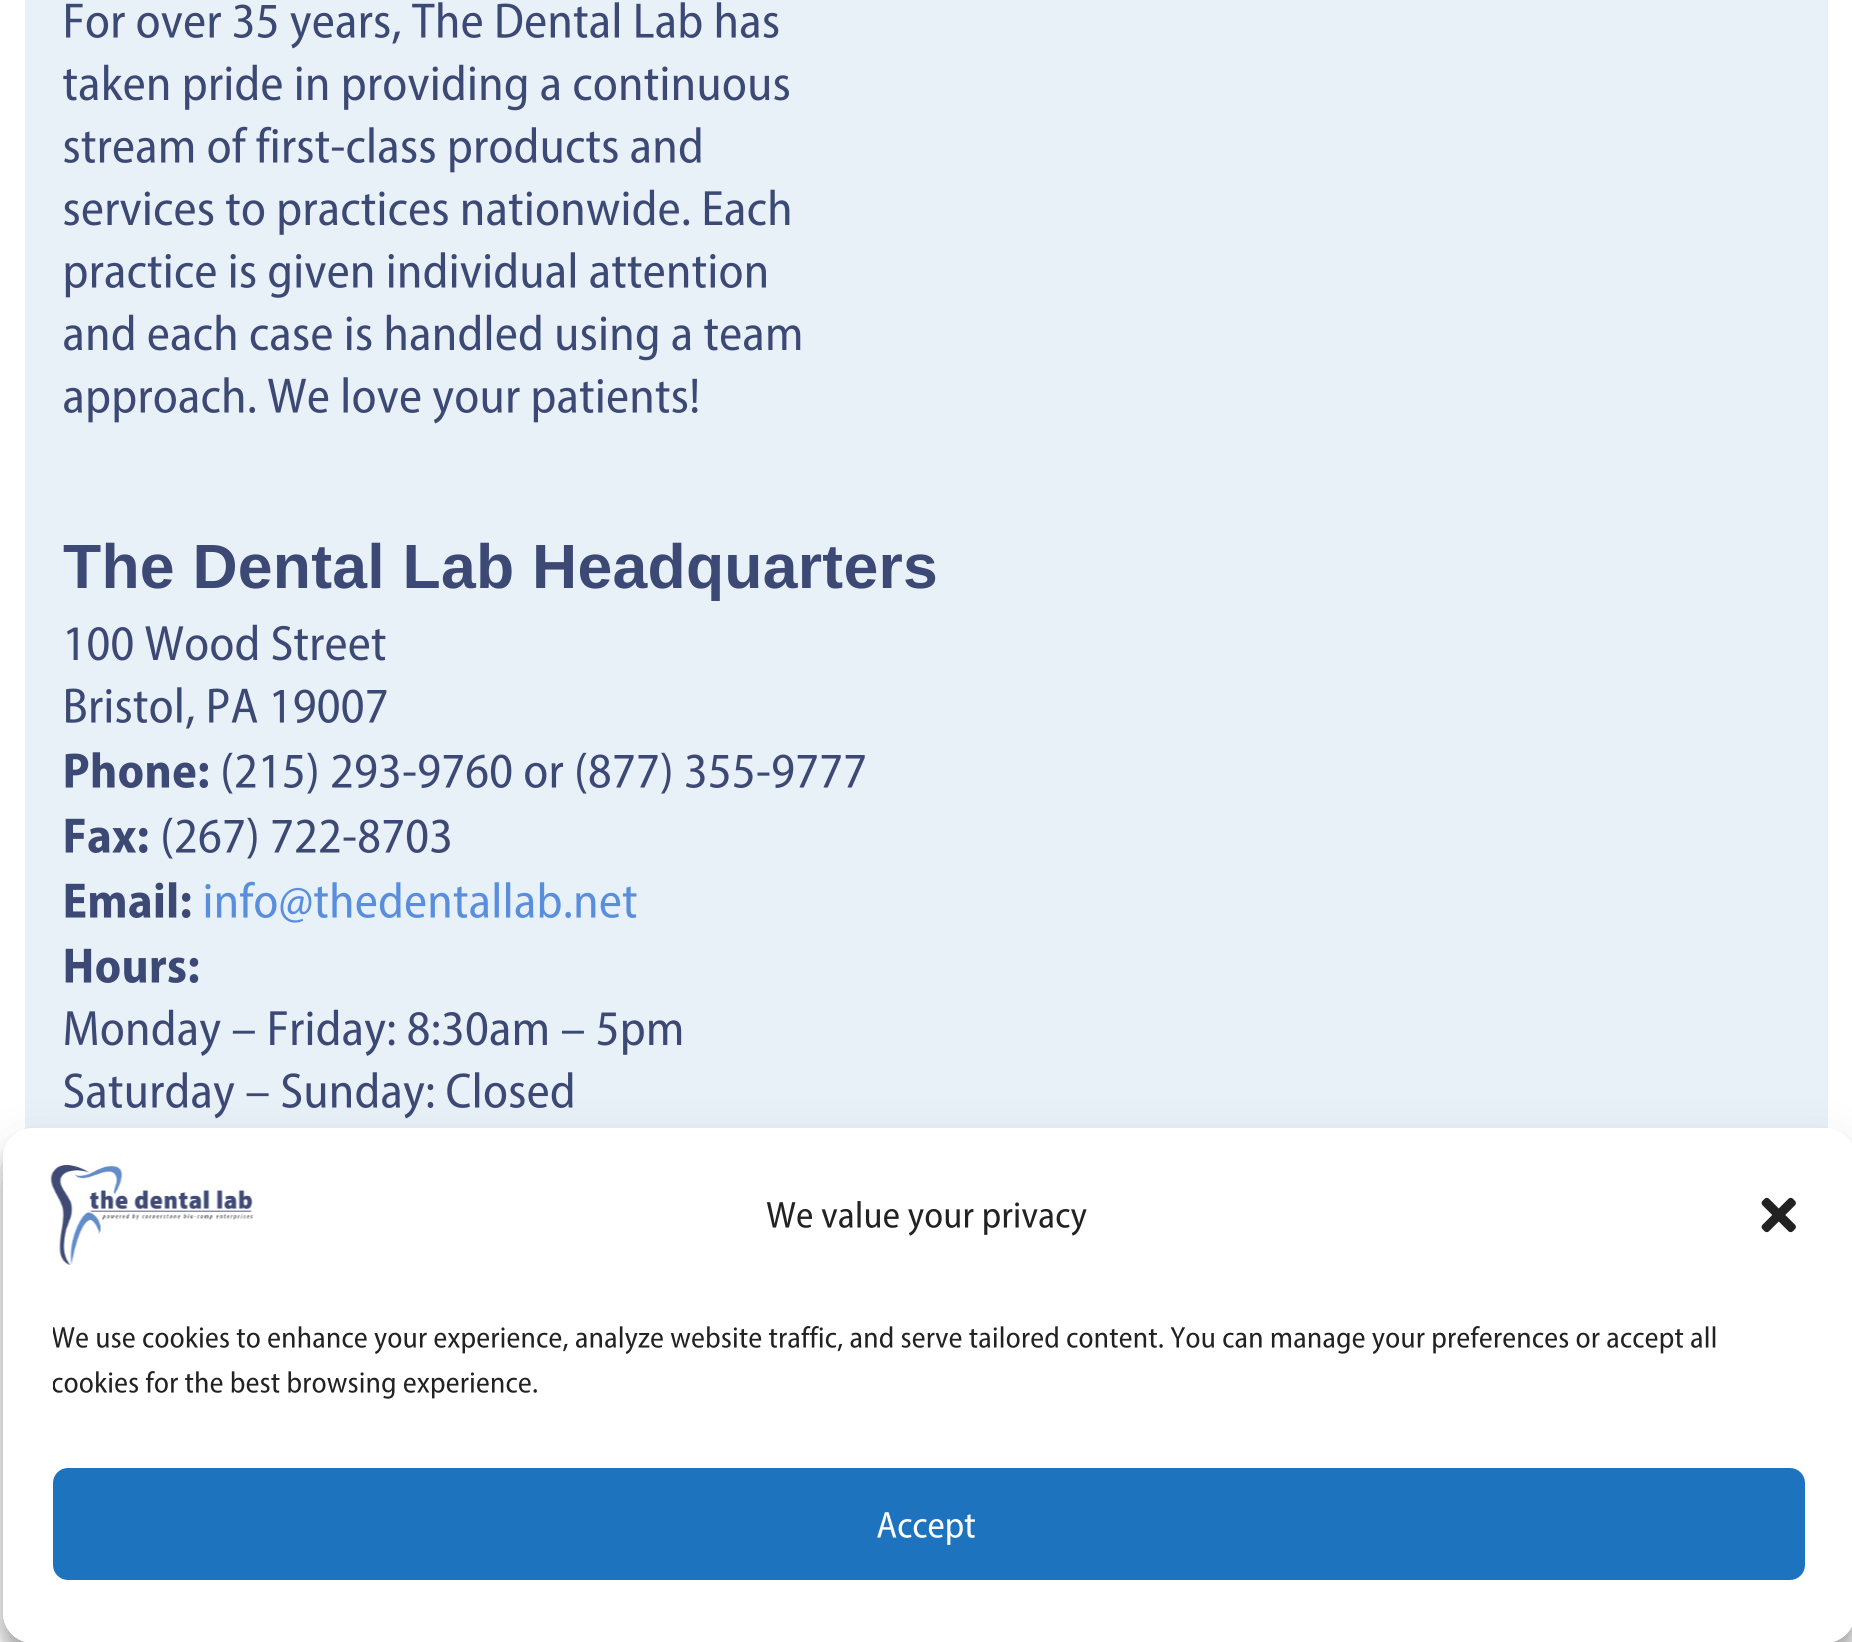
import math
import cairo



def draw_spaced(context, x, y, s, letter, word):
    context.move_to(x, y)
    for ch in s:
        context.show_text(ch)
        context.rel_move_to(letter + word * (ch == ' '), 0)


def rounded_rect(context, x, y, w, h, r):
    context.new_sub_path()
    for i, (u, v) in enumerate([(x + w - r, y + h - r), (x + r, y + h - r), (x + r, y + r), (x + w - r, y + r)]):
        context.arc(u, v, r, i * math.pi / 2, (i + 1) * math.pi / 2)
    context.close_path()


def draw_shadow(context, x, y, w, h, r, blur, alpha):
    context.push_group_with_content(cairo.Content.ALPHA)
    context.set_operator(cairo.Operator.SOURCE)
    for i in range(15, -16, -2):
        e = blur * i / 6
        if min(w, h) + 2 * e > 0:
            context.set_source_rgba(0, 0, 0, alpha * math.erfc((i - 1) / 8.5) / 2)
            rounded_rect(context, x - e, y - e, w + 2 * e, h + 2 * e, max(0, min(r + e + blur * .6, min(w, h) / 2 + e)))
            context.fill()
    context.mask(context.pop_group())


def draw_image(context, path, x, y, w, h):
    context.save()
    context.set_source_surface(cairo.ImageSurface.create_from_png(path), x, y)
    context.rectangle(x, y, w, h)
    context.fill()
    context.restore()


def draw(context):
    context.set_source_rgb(1, 1, 1)
    context.paint()
    context.set_source_rgb(232 / 255, 240 / 255, 248 / 255)
    context.rectangle(25, 0, 1803, 1642)
    context.fill()
    draw_image(context, "images/1.png", 66, 2, 713, 47)
    draw_image(context, "images/2.png", 63, 64, 726, 47)
    draw_image(context, "images/3.png", 64, 126, 637, 47)
    draw_image(context, "images/4.png", 64, 189, 726, 46)
    draw_image(context, "images/5.png", 65, 252, 701, 46)
    draw_image(context, "images/6.png", 64, 314, 737, 47)
    draw_image(context, "images/7.png", 64, 377, 634, 47)
    draw_image(context, "images/8.png", 67, 624, 319, 37)
    draw_image(context, "images/9.png", 66, 687, 321, 42)
    draw_image(context, "images/10.png", 65, 752, 144, 36)
    draw_image(context, "images/11.png", 223, 752, 642, 42)
    draw_image(context, "images/12.png", 65, 818, 83, 35)
    draw_image(context, "images/13.png", 163, 817, 287, 42)
    draw_image(context, "images/14.png", 65, 882, 126, 36)
    draw_image(context, "images/15.png", 205, 881, 432, 42)
    draw_image(context, "images/16.png", 65, 948, 134, 35)
    draw_image(context, "images/17.png", 65, 1009, 617, 47)
    draw_image(context, "images/18.png", 64, 1072, 509, 47)
    context.save()
    context.set_fill_rule(cairo.FillRule.EVEN_ODD)
    context.new_path()
    context.move_to(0, 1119)
    context.line_to(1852, 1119)
    context.line_to(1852, 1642)
    context.line_to(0, 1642)
    context.close_path()
    context.move_to(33, 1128)
    context.line_to(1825, 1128)
    context.curve_to(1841.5, 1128, 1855, 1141.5, 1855, 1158)
    context.line_to(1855, 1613)
    context.curve_to(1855, 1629.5, 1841.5, 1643, 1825, 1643)
    context.line_to(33, 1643)
    context.curve_to(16.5, 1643, 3, 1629.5, 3, 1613)
    context.line_to(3, 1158)
    context.curve_to(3, 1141.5, 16.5, 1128, 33, 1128)
    context.close_path()
    context.clip()
    context.set_source_rgb(0, 0, 0)
    draw_shadow(context, 3, 1143, 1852, 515, 30, 7.5, 0.23)
    context.restore()
    context.save()
    context.set_fill_rule(cairo.FillRule.EVEN_ODD)
    context.new_path()
    context.move_to(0, 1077)
    context.line_to(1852, 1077)
    context.line_to(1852, 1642)
    context.line_to(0, 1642)
    context.close_path()
    context.move_to(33, 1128)
    context.line_to(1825, 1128)
    context.curve_to(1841.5, 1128, 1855, 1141.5, 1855, 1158)
    context.line_to(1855, 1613)
    context.curve_to(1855, 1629.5, 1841.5, 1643, 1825, 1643)
    context.line_to(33, 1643)
    context.curve_to(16.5, 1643, 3, 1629.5, 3, 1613)
    context.line_to(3, 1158)
    context.curve_to(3, 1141.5, 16.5, 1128, 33, 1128)
    context.close_path()
    context.clip()
    context.set_source_rgb(0, 0, 0)
    draw_shadow(context, 3, 1153, 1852, 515, 30, 25, 0.19)
    context.restore()
    context.set_source_rgb(1, 1, 1)
    rounded_rect(context, 3, 1128, 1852, 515, 30)
    context.fill()
    draw_image(context, "images/19.png", 50, 1165, 204, 100)
    draw_image(context, "images/20.png", 766, 1201, 321, 35)
    draw_image(context, "images/21.png", 1761, 1197, 35, 36)
    draw_image(context, "images/22.png", 53, 1326, 1663, 28)
    draw_image(context, "images/23.png", 53, 1371, 484, 28)
    context.set_source_rgb(30 / 255, 115 / 255, 190 / 255)
    rounded_rect(context, 54.5, 1469.5, 1749, 109, 13.5)
    context.fill_preserve()
    context.set_line_width(3)
    context.stroke()
    draw_image(context, "images/24.png", 877, 1512, 98, 33)
    context.select_font_face("Liberation Sans", cairo.FontSlant.NORMAL, cairo.FontWeight.BOLD)
    context.set_font_size(62.5)
    context.set_source_rgb(61 / 255, 73 / 255, 117 / 255)
    draw_spaced(context, 63, 588, "The Dental Lab Headquarters", 0.25, 0)


surface = cairo.ImageSurface(cairo.Format.RGB24, 1852, 1642)
context = cairo.Context(surface)
options = cairo.FontOptions()
options.set_hint_metrics(cairo.HintMetrics.OFF)
options.set_hint_style(cairo.HintStyle.NONE)
context.set_font_options(options)
context.set_miter_limit(4)
draw(context)
surface.write_to_png("out.png")
